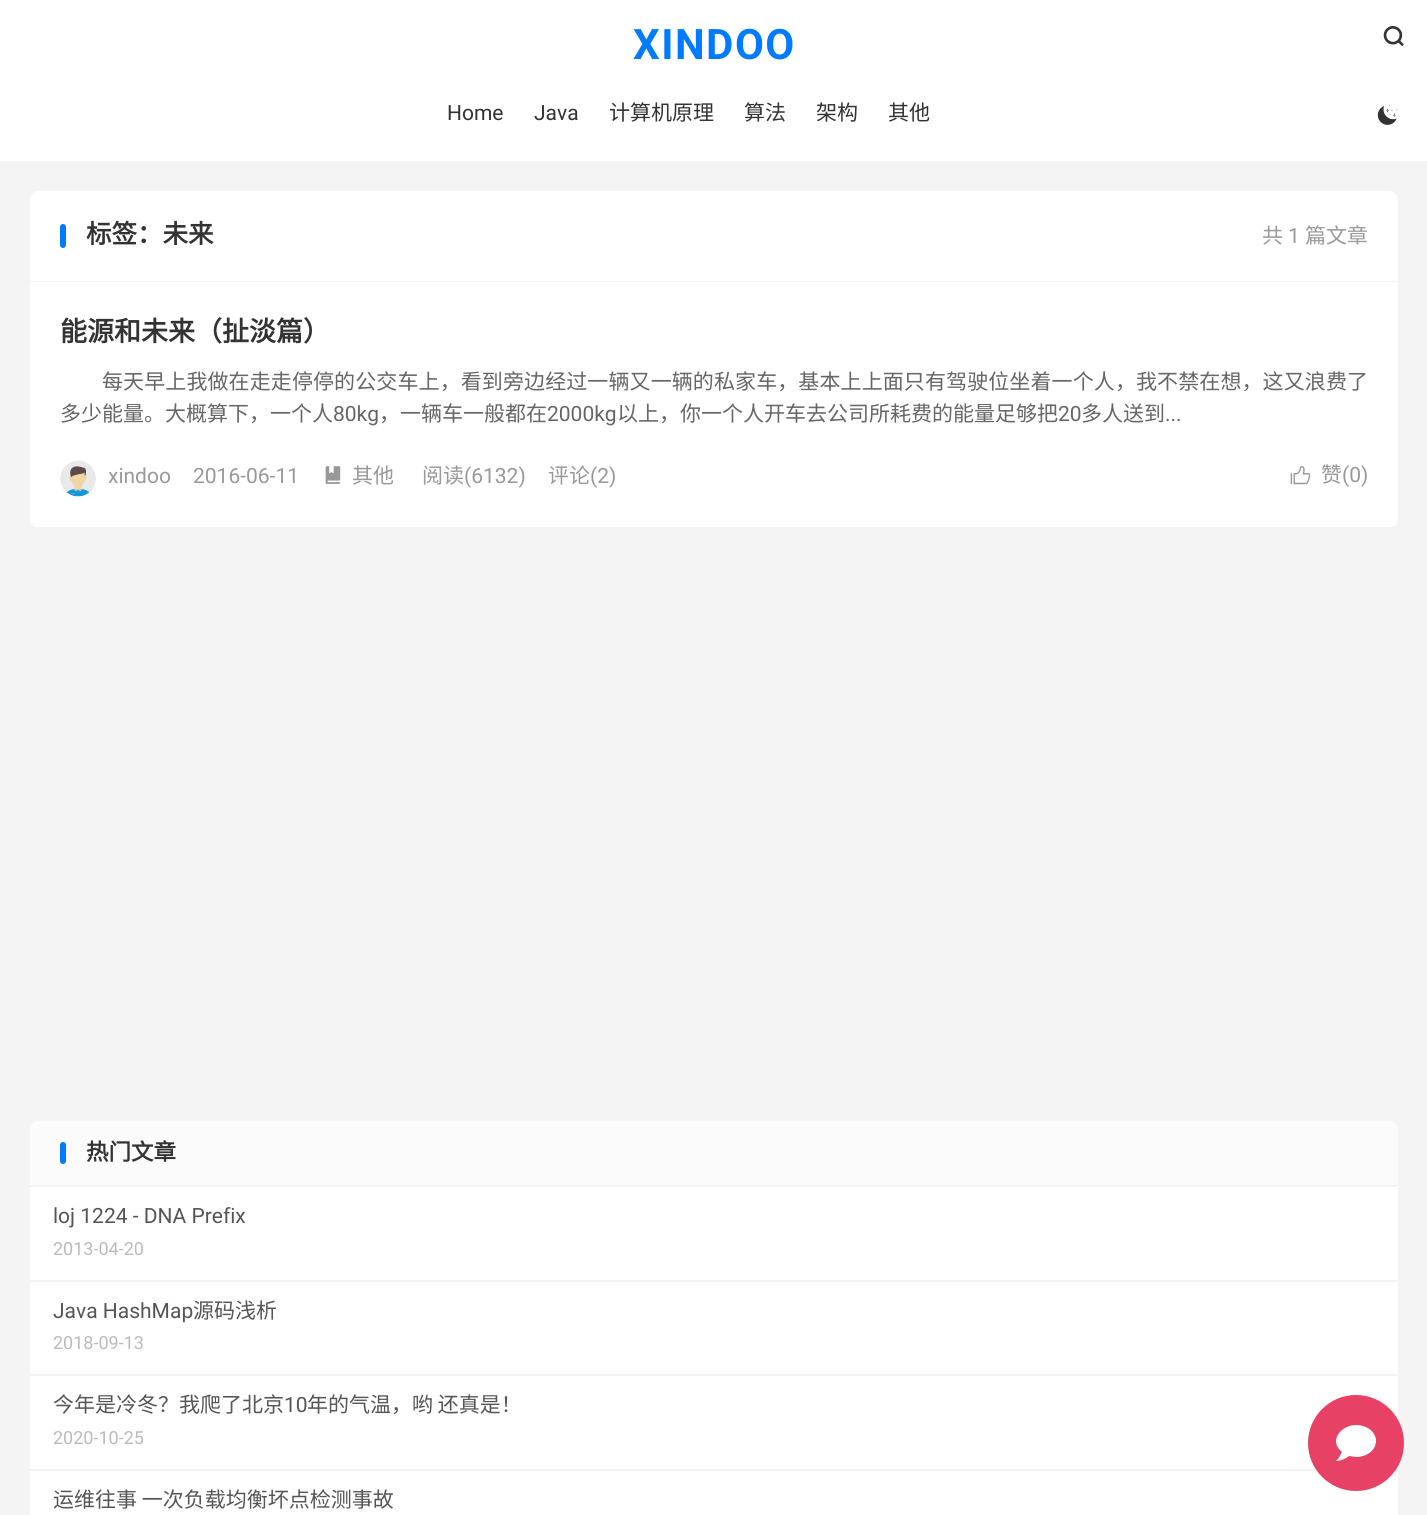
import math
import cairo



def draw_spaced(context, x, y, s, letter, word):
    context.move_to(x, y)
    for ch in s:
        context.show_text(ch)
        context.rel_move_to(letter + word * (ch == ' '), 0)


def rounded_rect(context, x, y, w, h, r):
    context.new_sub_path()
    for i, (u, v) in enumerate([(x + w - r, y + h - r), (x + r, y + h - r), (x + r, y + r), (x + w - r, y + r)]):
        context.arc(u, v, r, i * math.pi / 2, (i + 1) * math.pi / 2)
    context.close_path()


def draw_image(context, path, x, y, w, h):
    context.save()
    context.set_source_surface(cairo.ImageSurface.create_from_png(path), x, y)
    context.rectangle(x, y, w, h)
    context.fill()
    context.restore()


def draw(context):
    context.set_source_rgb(244 / 255, 244 / 255, 244 / 255)
    context.paint()
    context.set_source_rgb(1, 1, 1)
    context.rectangle(0, 0, 1427, 161)
    context.fill()
    draw_image(context, "images/1.png", 1383, 26, 21, 20)
    draw_image(context, "images/2.png", 1377, 105, 21, 20)
    context.new_path()
    context.move_to(39, 191)
    context.line_to(1389, 191)
    context.curve_to(1394, 191, 1398, 195, 1398, 200)
    context.line_to(1398, 282)
    context.line_to(30, 282)
    context.line_to(30, 200)
    context.curve_to(30, 195, 34, 191, 39, 191)
    context.close_path()
    context.fill()
    context.set_source_rgb(243 / 255, 243 / 255, 243 / 255)
    context.rectangle(30, 281, 1368, 1)
    context.fill()
    context.set_source_rgb(0, 123 / 255, 1)
    rounded_rect(context, 60, 224, 6, 24, 3)
    context.fill()
    context.set_source_rgb(1, 1, 1)
    context.new_path()
    context.move_to(30, 282)
    context.line_to(1398, 282)
    context.line_to(1398, 519)
    context.curve_to(1398, 524, 1394, 528, 1389, 528)
    context.line_to(39, 528)
    context.curve_to(34, 528, 30, 524, 30, 519)
    context.close_path()
    context.fill()
    context.set_source_rgb(243 / 255, 243 / 255, 243 / 255)
    context.rectangle(35, 527, 1359, 1)
    context.fill()
    draw_image(context, "images/3.png", 60, 460, 36, 37)
    draw_image(context, "images/4.png", 325, 466, 16, 18)
    draw_image(context, "images/5.png", 1290, 466, 21, 19)
    context.set_source_rgb(1, 1, 1)
    rounded_rect(context, 30, 1121, 1368, 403, 9)
    context.fill()
    context.set_source_rgb(251 / 255, 251 / 255, 251 / 255)
    context.new_path()
    context.move_to(39, 1121)
    context.line_to(1389, 1121)
    context.curve_to(1394, 1121, 1398, 1125, 1398, 1130)
    context.line_to(1398, 1187)
    context.line_to(30, 1187)
    context.line_to(30, 1130)
    context.curve_to(30, 1125, 34, 1121, 39, 1121)
    context.close_path()
    context.fill()
    context.set_source_rgb(243 / 255, 243 / 255, 243 / 255)
    context.rectangle(30, 1185, 1368, 2)
    context.fill()
    context.set_source_rgb(0, 123 / 255, 1)
    rounded_rect(context, 60, 1142, 6, 22, 3)
    context.fill()
    context.set_source_rgb(243 / 255, 243 / 255, 243 / 255)
    context.rectangle(30, 1280, 1368, 2)
    context.fill()
    context.rectangle(30, 1374, 1368, 2)
    context.fill()
    context.rectangle(30, 1469, 1368, 2)
    context.fill()
    context.set_source_rgb(231 / 255, 66 / 255, 102 / 255)
    context.arc(1356, 1443, 48, 0, 2 * math.pi)
    context.fill()
    context.set_source_rgb(1, 1, 1)
    context.new_path()
    context.move_to(1356, 1425)
    context.curve_to(1367, 1425, 1376, 1432, 1376, 1441)
    context.curve_to(1376, 1450, 1367, 1457, 1356, 1457)
    context.line_to(1349, 1456)
    context.curve_to(1343, 1461, 1336, 1461, 1336, 1461)
    context.curve_to(1341, 1456, 1341, 1453, 1342, 1452)
    context.curve_to(1328, 1441, 1341, 1425, 1356, 1425)
    context.fill()
    context.select_font_face("Roboto", cairo.FontSlant.NORMAL, cairo.FontWeight.BOLD)
    context.set_font_size(42)
    context.set_source_rgb(0, 123 / 255, 1)
    draw_spaced(context, 633, 59, "XINDOO", 1.5, 0)
    context.select_font_face("Roboto")
    context.set_font_size(21)
    context.set_source_rgb(51 / 255, 51 / 255, 51 / 255)
    context.move_to(447, 120)
    context.show_text("Home")
    context.move_to(534, 120)
    context.show_text("Java")
    context.select_font_face("Noto Sans CJK SC")
    context.move_to(609, 120)
    context.show_text("计算机原理")
    context.move_to(744, 120)
    context.show_text("算法")
    context.move_to(816, 120)
    context.show_text("架构")
    context.move_to(888, 120)
    context.show_text("其他")
    context.select_font_face("Noto Sans CJK SC", cairo.FontSlant.NORMAL, cairo.FontWeight.BOLD)
    context.set_font_size(25.5)
    context.move_to(86, 243)
    context.show_text("标签：未来")
    context.select_font_face("Noto Sans CJK SC")
    context.set_font_size(21)
    context.set_source_rgb(153 / 255, 153 / 255, 153 / 255)
    context.move_to(1262, 243)
    context.show_text("共")
    context.select_font_face("Roboto")
    context.move_to(1288, 243)
    context.show_text("1")
    context.select_font_face("Noto Sans CJK SC")
    context.move_to(1305, 243)
    context.show_text("篇文章")
    context.select_font_face("Noto Sans CJK SC", cairo.FontSlant.NORMAL, cairo.FontWeight.BOLD)
    context.set_font_size(27)
    context.set_source_rgb(51 / 255, 51 / 255, 51 / 255)
    context.move_to(60, 341)
    context.show_text("能源和未来（扯淡篇）")
    context.select_font_face("Noto Sans CJK SC")
    context.set_font_size(21)
    context.set_source_rgb(102 / 255, 102 / 255, 102 / 255)
    draw_spaced(context, 102, 389, "每天早上我做在走走停停的公交车上，看到旁边经过一辆又一辆的私家车，基本上上面只有驾驶位坐着一个人，我不禁在想，这又浪费了", 0.1, 0)
    context.move_to(60, 421)
    context.show_text("多少能量。大概算下，一个人")
    context.select_font_face("Roboto")
    context.move_to(333, 421)
    context.show_text("80kg")
    context.select_font_face("Noto Sans CJK SC")
    context.move_to(379, 421)
    context.show_text("，一辆车一般都在")
    context.select_font_face("Roboto")
    context.move_to(547, 421)
    context.show_text("2000kg")
    context.select_font_face("Noto Sans CJK SC")
    context.move_to(617, 421)
    context.show_text("以上，你一个人开车去公司所耗费的能量足够把")
    context.select_font_face("Roboto")
    context.move_to(1058, 421)
    context.show_text("20")
    context.select_font_face("Noto Sans CJK SC")
    context.move_to(1081, 421)
    context.show_text("多人送到")
    context.select_font_face("Roboto")
    context.move_to(1165, 421)
    context.show_text("...")
    context.set_source_rgb(153 / 255, 153 / 255, 153 / 255)
    context.move_to(108, 483)
    context.show_text("xindoo")
    context.move_to(193, 483)
    context.show_text("2016-06-11")
    context.select_font_face("Noto Sans CJK SC")
    context.move_to(352, 483)
    context.show_text("其他")
    context.move_to(422, 483)
    context.show_text("阅读")
    context.select_font_face("Roboto")
    context.move_to(464, 483)
    context.show_text("(6132)")
    context.select_font_face("Noto Sans CJK SC")
    context.move_to(548, 483)
    context.show_text("评论")
    context.select_font_face("Roboto")
    context.move_to(590, 483)
    context.show_text("(2)")
    context.select_font_face("Noto Sans CJK SC")
    context.move_to(1321, 482)
    context.show_text("赞")
    context.select_font_face("Roboto")
    context.move_to(1342, 482)
    context.show_text("(0)")
    context.select_font_face("Noto Sans CJK SC", cairo.FontSlant.NORMAL, cairo.FontWeight.BOLD)
    context.set_font_size(22.5)
    context.set_source_rgb(51 / 255, 51 / 255, 51 / 255)
    context.move_to(86, 1160)
    context.show_text("热门文章")
    context.select_font_face("Roboto")
    context.set_font_size(21)
    context.set_source_rgb(85 / 255, 85 / 255, 85 / 255)
    context.move_to(53, 1223)
    context.show_text("loj 1224 - DNA Prefix")
    context.set_font_size(18)
    context.set_source_rgb(187 / 255, 187 / 255, 187 / 255)
    context.move_to(53, 1255)
    context.show_text("2013-04-20")
    context.set_font_size(21)
    context.set_source_rgb(85 / 255, 85 / 255, 85 / 255)
    context.move_to(53, 1318)
    context.show_text("Java HashMap")
    context.select_font_face("Noto Sans CJK SC")
    context.move_to(193, 1318)
    context.show_text("源码浅析")
    context.select_font_face("Roboto")
    context.set_font_size(18)
    context.set_source_rgb(187 / 255, 187 / 255, 187 / 255)
    context.move_to(53, 1349)
    context.show_text("2018-09-13")
    context.select_font_face("Noto Sans CJK SC")
    context.set_font_size(21)
    context.set_source_rgb(85 / 255, 85 / 255, 85 / 255)
    context.move_to(53, 1412)
    context.show_text("今年是冷冬？我爬了北京")
    context.select_font_face("Roboto")
    context.move_to(284, 1412)
    context.show_text("10")
    context.select_font_face("Noto Sans CJK SC")
    context.move_to(307, 1412)
    context.show_text("年的气温，哟 还真是！")
    context.select_font_face("Roboto")
    context.set_font_size(18)
    context.set_source_rgb(187 / 255, 187 / 255, 187 / 255)
    context.move_to(53, 1444)
    context.show_text("2020-10-25")
    context.select_font_face("Noto Sans CJK SC")
    context.set_font_size(21)
    context.set_source_rgb(85 / 255, 85 / 255, 85 / 255)
    context.move_to(53, 1507)
    context.show_text("运维往事 一次负载均衡坏点检测事故")


surface = cairo.ImageSurface(cairo.Format.RGB24, 1427, 1515)
context = cairo.Context(surface)
options = cairo.FontOptions()
options.set_hint_metrics(cairo.HintMetrics.OFF)
options.set_hint_style(cairo.HintStyle.NONE)
context.set_font_options(options)
context.set_miter_limit(4)
draw(context)
surface.write_to_png("out.png")
